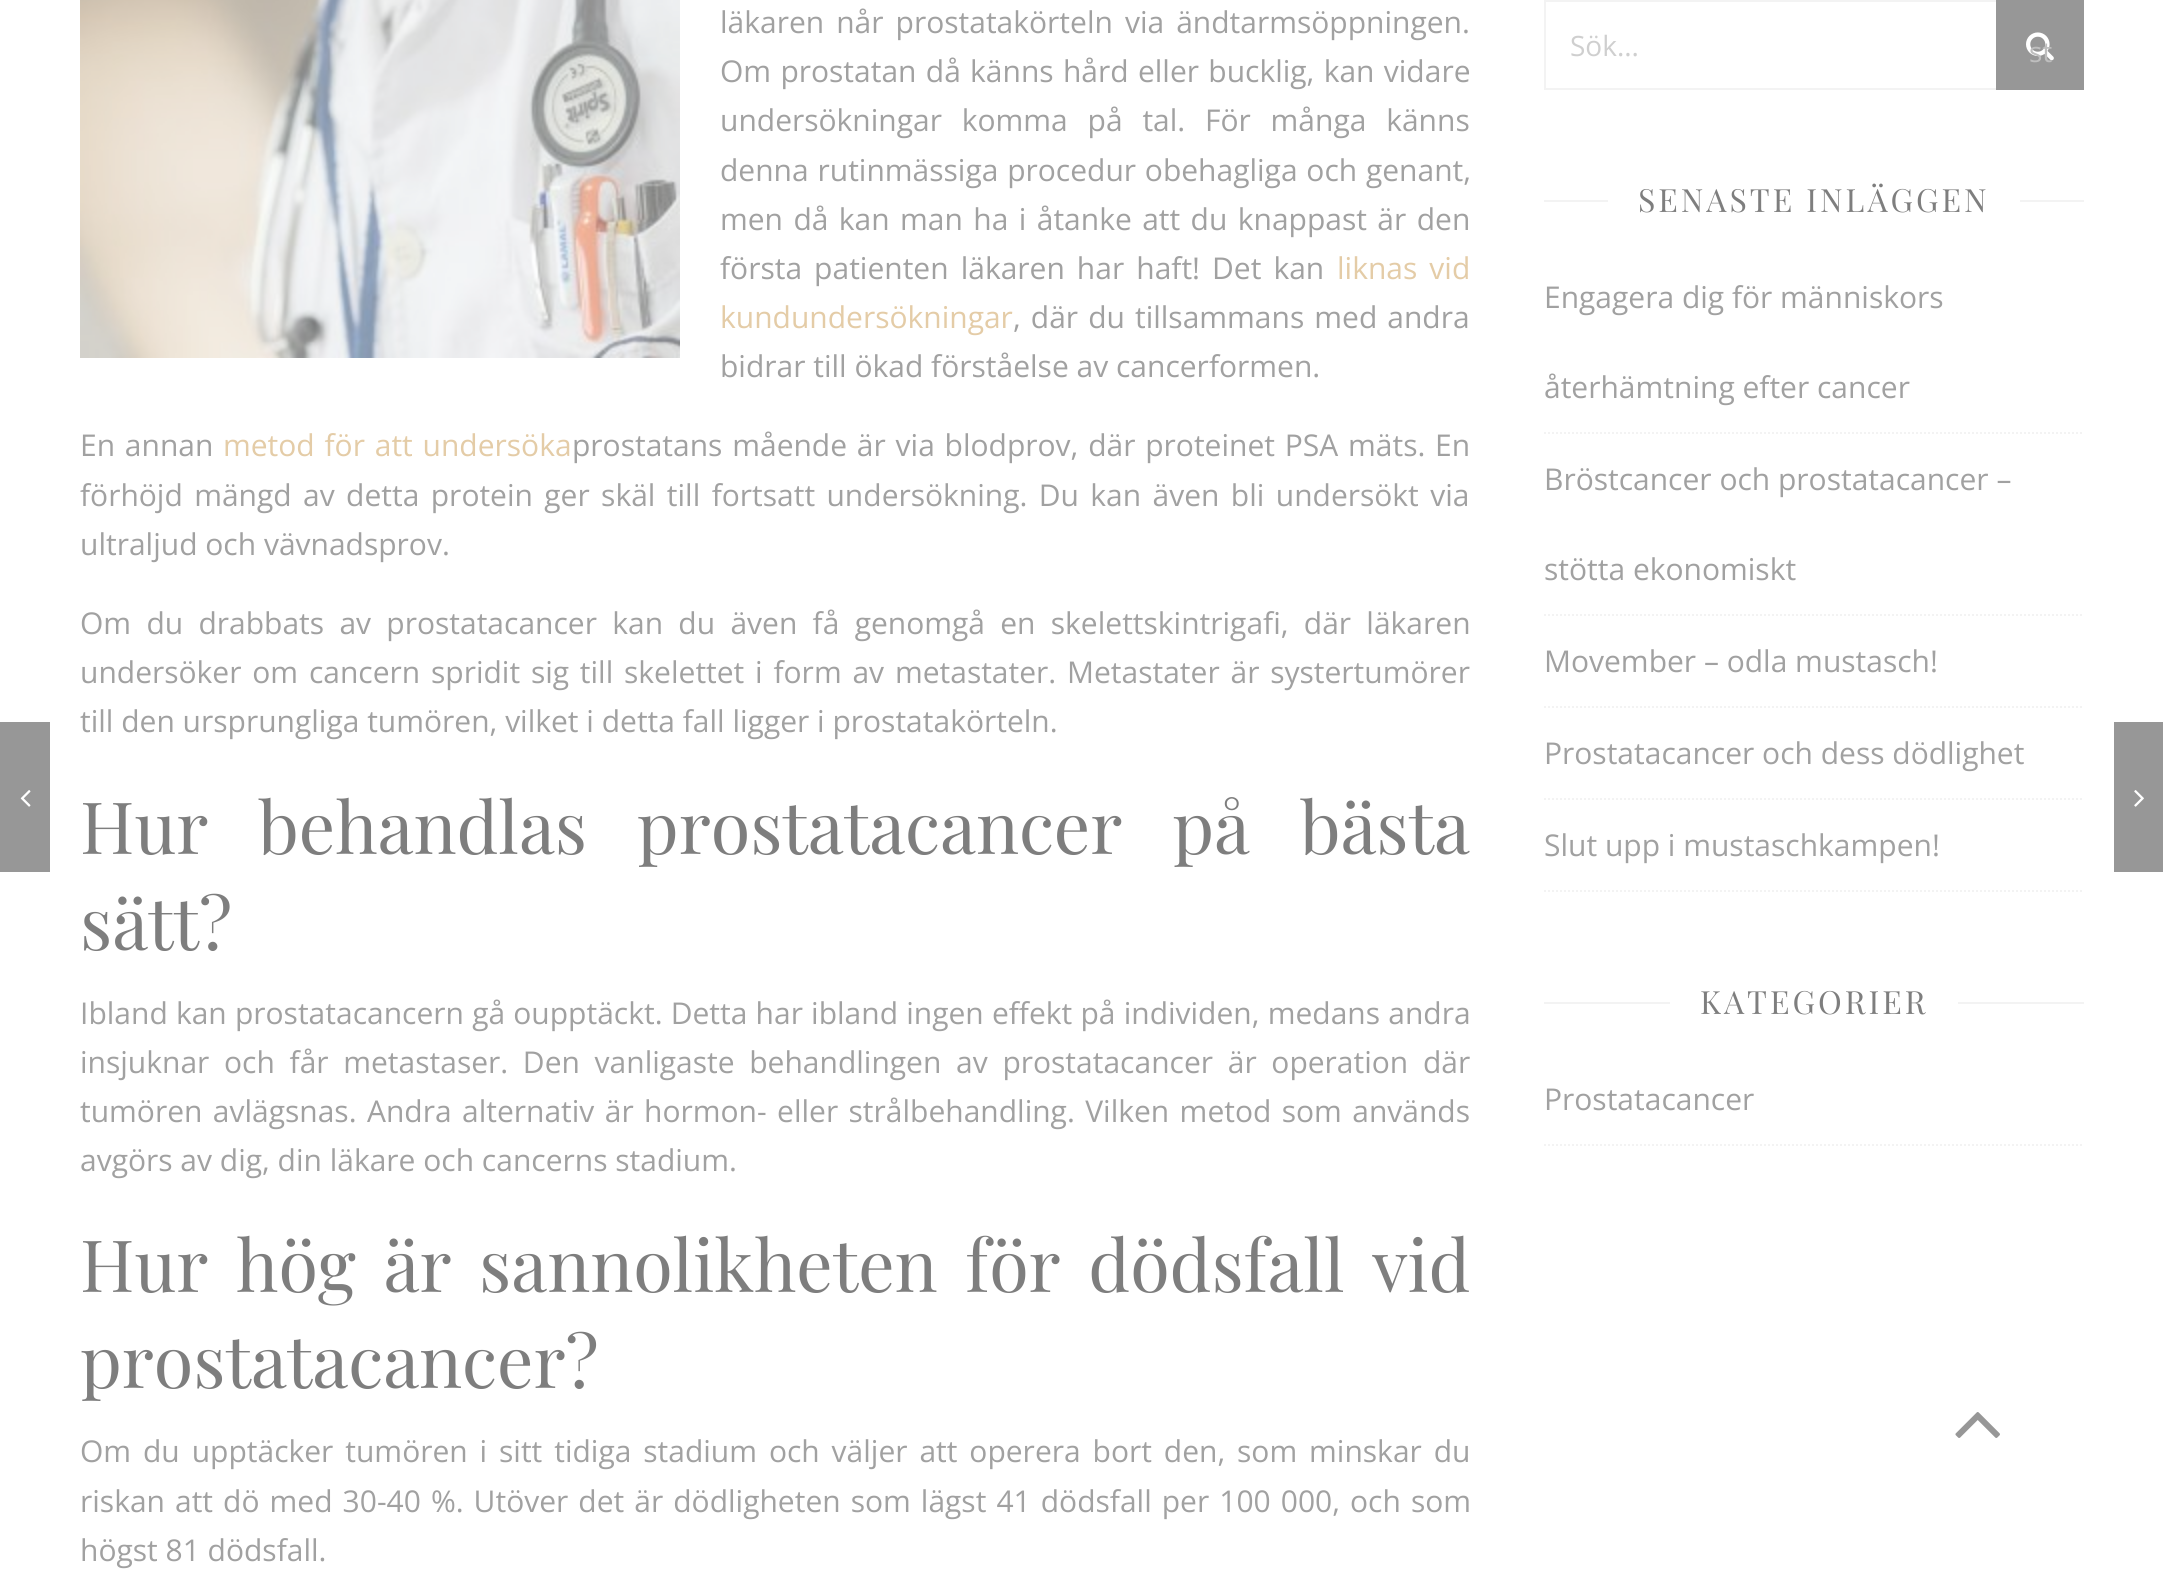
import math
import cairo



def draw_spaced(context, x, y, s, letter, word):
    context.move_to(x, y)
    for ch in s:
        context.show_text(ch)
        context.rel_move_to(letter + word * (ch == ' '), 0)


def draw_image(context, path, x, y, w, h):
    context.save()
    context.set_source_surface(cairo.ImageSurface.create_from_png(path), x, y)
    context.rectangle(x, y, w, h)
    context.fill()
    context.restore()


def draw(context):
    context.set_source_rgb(1, 1, 1)
    context.paint()
    context.set_source_rgb(151 / 255, 151 / 255, 151 / 255)
    context.rectangle(0, 722, 50, 150)
    context.fill()
    draw_image(context, "images/1.png", 20, 790, 11, 17)
    draw_image(context, "images/2.png", 80, 0, 600, 358)
    context.rectangle(2114, 722, 49, 150)
    context.fill()
    draw_image(context, "images/3.png", 2134, 790, 10, 17)
    context.rectangle(1545, 1, 538, 88)
    context.set_source_rgb(243 / 255, 243 / 255, 243 / 255)
    context.stroke()
    context.set_source_rgb(151 / 255, 151 / 255, 151 / 255)
    context.rectangle(1996, 0, 88, 90)
    context.fill()
    draw_image(context, "images/4.png", 2026, 32, 28, 29)
    context.set_source_rgb(243 / 255, 243 / 255, 243 / 255)
    context.rectangle(1544, 200, 64, 2)
    context.fill()
    context.rectangle(2020, 200, 64, 2)
    context.fill()
    context.new_path()
    context.move_to(1544, 433)
    context.line_to(2084, 433)
    context.set_dash([2, 2])
    context.stroke()
    context.new_path()
    context.move_to(1544, 615)
    context.line_to(2084, 615)
    context.stroke()
    context.new_path()
    context.move_to(1544, 707)
    context.line_to(2084, 707)
    context.stroke()
    context.new_path()
    context.move_to(1544, 799)
    context.line_to(2084, 799)
    context.stroke()
    context.new_path()
    context.move_to(1544, 891)
    context.line_to(2084, 891)
    context.stroke()
    context.rectangle(1544, 1002, 126, 2)
    context.fill()
    context.rectangle(1958, 1002, 126, 2)
    context.fill()
    context.new_path()
    context.move_to(1544, 1145)
    context.line_to(2084, 1145)
    context.stroke()
    draw_image(context, "images/5.png", 1955, 1412, 45, 26)
    context.select_font_face("Open Sans")
    context.set_font_size(30)
    context.set_source_rgb(161 / 255, 161 / 255, 161 / 255)
    draw_spaced(context, 720, 33, "läkaren når prostatakörteln via ändtarmsöppningen.", 0, 4.25)
    draw_spaced(context, 720, 82, "Om prostatan då känns hård eller bucklig, kan vidare", 0, 1.5)
    draw_spaced(context, 720, 131, "undersökningar komma på tal. För många känns", 0, 12)
    draw_spaced(context, 720, 181, "denna rutinmässiga procedur obehagliga och genant,", 0, 1)
    draw_spaced(context, 720, 230, "men då kan man ha i åtanke att du knappast är den", 0, 2.6)
    draw_spaced(context, 720, 279, "första patienten läkaren har haft! Det kan", 0, 4.25)
    context.set_source_rgb(228 / 255, 204 / 255, 167 / 255)
    draw_spaced(context, 1337, 279, "liknas vid", 0, 4.25)
    context.move_to(720, 328)
    context.show_text("kundundersökningar")
    context.set_source_rgb(161 / 255, 161 / 255, 161 / 255)
    draw_spaced(context, 1013, 328, ", där du tillsammans med andra", 0, 2.25)
    context.move_to(720, 377)
    context.show_text("bidrar till ökad förståelse av cancerformen.")
    draw_spaced(context, 80, 456, "En annan", 0, 2)
    context.set_source_rgb(228 / 255, 204 / 255, 167 / 255)
    draw_spaced(context, 223, 456, "metod för att undersöka", 0, 2)
    context.set_source_rgb(161 / 255, 161 / 255, 161 / 255)
    draw_spaced(context, 572, 456, "prostatans mående är via blodprov, där proteinet PSA mäts. En", 0, 2)
    draw_spaced(context, 80, 506, "förhöjd mängd av detta protein ger skäl till fortsatt undersökning. Du kan även bli undersökt via", 0, 3.6)
    context.move_to(80, 555)
    context.show_text("ultraljud och vävnadsprov.")
    draw_spaced(context, 80, 634, "Om du drabbats av prostatacancer kan du även få genomgå en skelettskintrigafi, där läkaren", 0, 7.5)
    draw_spaced(context, 80, 683, "undersöker om cancern spridit sig till skelettet i form av metastater. Metastater är systertumörer", 0, 3)
    context.move_to(80, 732)
    context.show_text("till den ursprungliga tumören, vilket i detta fall ligger i prostatakörteln.")
    context.select_font_face("Playfair Display")
    context.set_font_size(72)
    context.set_source_rgb(126 / 255, 126 / 255, 126 / 255)
    draw_spaced(context, 80, 854, "Hur behandlas prostatacancer på bästa", 0, 32)
    context.move_to(80, 950)
    context.show_text("sätt?")
    context.select_font_face("Open Sans")
    context.set_font_size(30)
    context.set_source_rgb(161 / 255, 161 / 255, 161 / 255)
    draw_spaced(context, 80, 1024, "Ibland kan prostatacancern gå oupptäckt. Detta har ibland ingen effekt på individen, medans andra", 0, 0.4)
    draw_spaced(context, 80, 1073, "insjuknar och får metastaser. Den vanligaste behandlingen av prostatacancer är operation där", 0, 6.9)
    draw_spaced(context, 80, 1122, "tumören avlägsnas. Andra alternativ är hormon- eller strålbehandling. Vilken metod som används", 0, 2.6)
    context.move_to(80, 1171)
    context.show_text("avgörs av dig, din läkare och cancerns stadium.")
    context.select_font_face("Playfair Display")
    context.set_font_size(72)
    context.set_source_rgb(126 / 255, 126 / 255, 126 / 255)
    draw_spaced(context, 80, 1292, "Hur hög är sannolikheten för dödsfall vid", 0, 9.75)
    context.move_to(80, 1388)
    context.show_text("prostatacancer?")
    context.select_font_face("Open Sans")
    context.set_font_size(30)
    context.set_source_rgb(161 / 255, 161 / 255, 161 / 255)
    draw_spaced(context, 80, 1462, "Om du upptäcker tumören i sitt tidiga stadium och väljer att operera bort den, som minskar du", 0, 4.1)
    draw_spaced(context, 80, 1512, "riskan att dö med 30-40 %. Utöver det är dödligheten som lägst 41 dödsfall per 100 000, och som", 0, 2.25)
    context.move_to(80, 1561)
    context.show_text("högst 81 dödsfall.")
    context.set_font_size(28)
    context.set_source_rgb(207 / 255, 207 / 255, 207 / 255)
    context.move_to(1570, 56)
    context.show_text("Sök...")
    context.set_source_rgb(190 / 255, 190 / 255, 190 / 255)
    context.move_to(2029, 62)
    context.show_text("st")
    context.select_font_face("Playfair Display")
    context.set_font_size(32)
    context.set_source_rgb(126 / 255, 126 / 255, 126 / 255)
    draw_spaced(context, 1638, 212, "SENASTE INLÄGGEN", 3, 0)
    context.select_font_face("Open Sans")
    context.set_font_size(30)
    context.set_source_rgb(161 / 255, 161 / 255, 161 / 255)
    context.move_to(1544, 308)
    context.show_text("Engagera dig för människors")
    context.move_to(1544, 398)
    context.show_text("återhämtning efter cancer")
    context.move_to(1544, 490)
    context.show_text("Bröstcancer och prostatacancer –")
    context.move_to(1544, 580)
    context.show_text("stötta ekonomiskt")
    context.move_to(1544, 672)
    context.show_text("Movember – odla mustasch!")
    context.move_to(1544, 764)
    context.show_text("Prostatacancer och dess dödlighet")
    context.move_to(1544, 856)
    context.show_text("Slut upp i mustaschkampen!")
    context.select_font_face("Playfair Display")
    context.set_font_size(32)
    context.set_source_rgb(126 / 255, 126 / 255, 126 / 255)
    draw_spaced(context, 1700, 1014, "KATEGORIER", 3, 0)
    context.select_font_face("Open Sans")
    context.set_font_size(30)
    context.set_source_rgb(161 / 255, 161 / 255, 161 / 255)
    context.move_to(1544, 1110)
    context.show_text("Prostatacancer")


surface = cairo.ImageSurface(cairo.Format.RGB24, 2163, 1591)
context = cairo.Context(surface)
options = cairo.FontOptions()
options.set_hint_metrics(cairo.HintMetrics.OFF)
options.set_hint_style(cairo.HintStyle.NONE)
context.set_font_options(options)
context.set_miter_limit(4)
draw(context)
surface.write_to_png("out.png")
